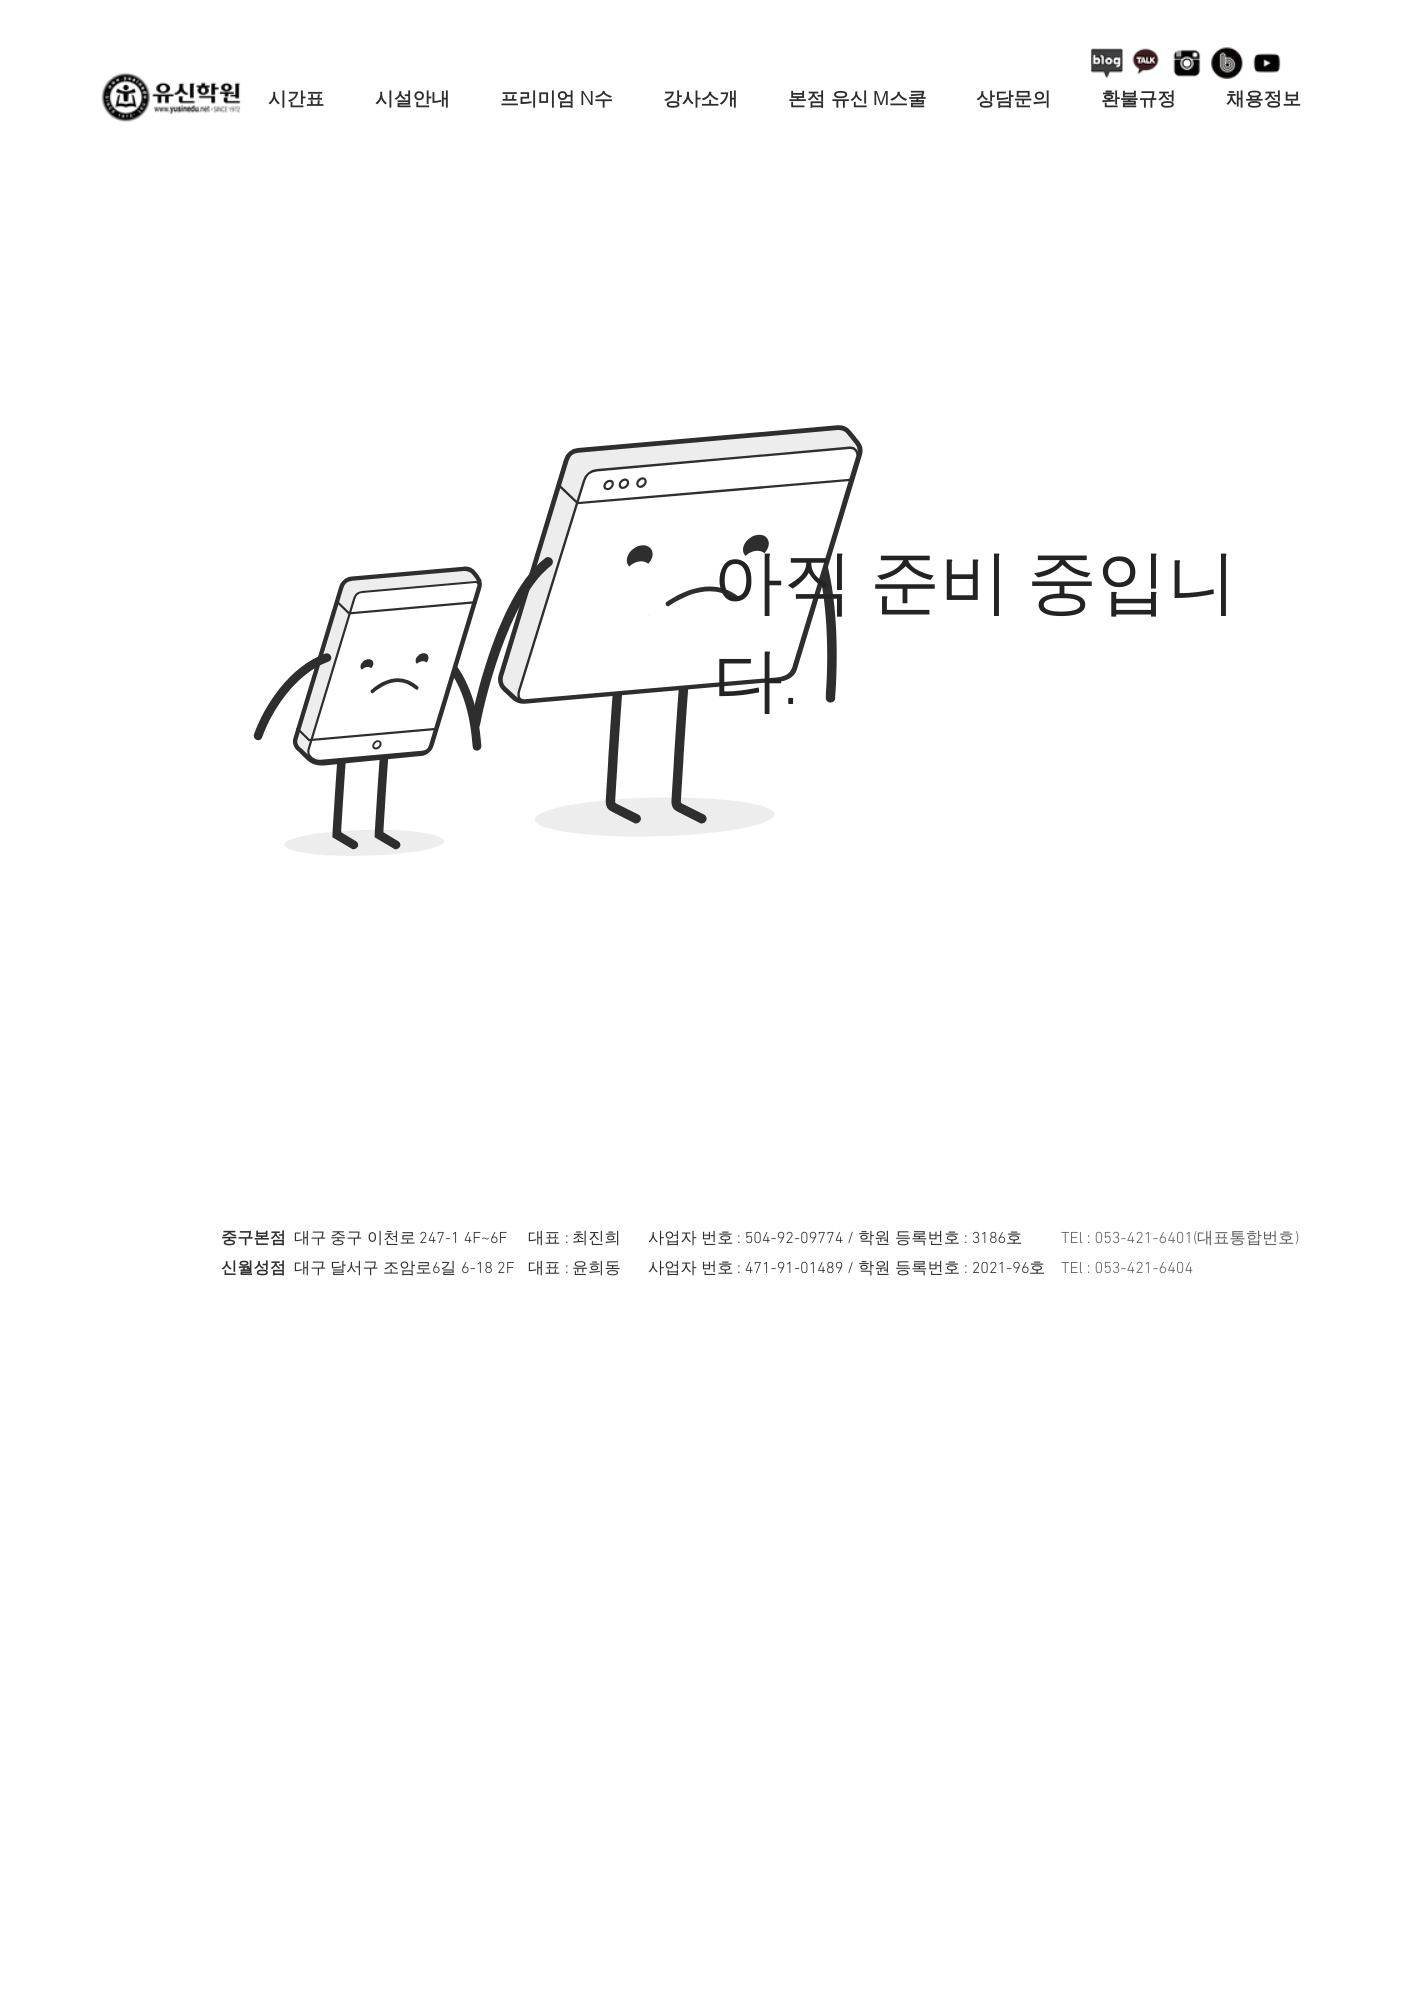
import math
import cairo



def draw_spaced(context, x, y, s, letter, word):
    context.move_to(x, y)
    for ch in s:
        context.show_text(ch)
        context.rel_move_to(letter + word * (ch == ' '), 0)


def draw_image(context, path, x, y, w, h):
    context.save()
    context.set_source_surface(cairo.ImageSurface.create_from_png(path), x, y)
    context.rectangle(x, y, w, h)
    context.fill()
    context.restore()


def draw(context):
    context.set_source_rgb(1, 1, 1)
    context.paint()
    draw_image(context, "images/1.png", 1091, 48, 32, 30)
    draw_image(context, "images/2.png", 1132, 48, 27, 26)
    draw_image(context, "images/3.png", 1173, 49, 28, 28)
    draw_image(context, "images/4.png", 1211, 47, 32, 32)
    draw_image(context, "images/5.png", 1253, 53, 28, 20)
    draw_image(context, "images/6.png", 101, 72, 140, 50)
    draw_image(context, "images/7.png", 253, 425, 610, 431)
    context.select_font_face("WenQuanYi Zen Hei", cairo.FontSlant.NORMAL, cairo.FontWeight.BOLD)
    context.set_font_size(18.75)
    context.set_source_rgb(47 / 255, 46 / 255, 46 / 255)
    context.move_to(268, 105)
    context.show_text("시간표")
    context.move_to(375, 105)
    context.show_text("시설안내")
    context.move_to(500, 105)
    context.show_text("프리미엄")
    context.select_font_face("helvetica", cairo.FontSlant.NORMAL, cairo.FontWeight.BOLD)
    context.move_to(580, 105)
    context.show_text("N")
    context.select_font_face("WenQuanYi Zen Hei", cairo.FontSlant.NORMAL, cairo.FontWeight.BOLD)
    context.move_to(594, 105)
    context.show_text("수")
    context.move_to(663, 105)
    context.show_text("강사소개")
    context.move_to(788, 105)
    context.show_text("본점 유신")
    context.select_font_face("helvetica", cairo.FontSlant.NORMAL, cairo.FontWeight.BOLD)
    context.move_to(873, 105)
    context.show_text("M")
    context.select_font_face("WenQuanYi Zen Hei", cairo.FontSlant.NORMAL, cairo.FontWeight.BOLD)
    context.move_to(889, 105)
    context.show_text("스쿨")
    context.move_to(976, 105)
    context.show_text("상담문의")
    context.move_to(1101, 105)
    context.show_text("환불규정")
    context.move_to(1226, 105)
    context.show_text("채용정보")
    context.select_font_face("WenQuanYi Zen Hei Medium")
    context.set_font_size(70)
    context.set_source_rgb(36 / 255, 35 / 255, 35 / 255)
    draw_spaced(context, 713, 606, "아직 준비 중입니", 0, -4)
    context.move_to(713, 704)
    context.show_text("다")
    context.select_font_face("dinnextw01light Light")
    context.move_to(783, 704)
    context.show_text(".")
    context.select_font_face("WenQuanYi Zen Hei", cairo.FontSlant.NORMAL, cairo.FontWeight.BOLD)
    context.set_font_size(16.25)
    context.set_source_rgb(47 / 255, 46 / 255, 46 / 255)
    context.move_to(221, 1243)
    context.show_text("중구본점")
    context.select_font_face("WenQuanYi Zen Hei Medium")
    context.move_to(294, 1243)
    context.show_text("대구")
    context.move_to(330, 1243)
    context.show_text("중구")
    context.move_to(367, 1243)
    context.show_text("이천로")
    context.select_font_face("dinnextw01light Light")
    context.move_to(419, 1243)
    context.show_text("247-1 4F~6F")
    context.select_font_face("WenQuanYi Zen Hei Medium")
    context.move_to(528, 1243)
    context.show_text("대표")
    context.select_font_face("dinnextw01light Light")
    context.move_to(565, 1243)
    context.show_text(":")
    context.select_font_face("WenQuanYi Zen Hei Medium")
    context.move_to(572, 1243)
    context.show_text("최진희")
    context.move_to(648, 1243)
    context.show_text("사업자")
    context.move_to(701, 1243)
    context.show_text("번호")
    context.select_font_face("dinnextw01light Light")
    context.move_to(737, 1243)
    context.show_text(": 504-92-09774 /")
    context.select_font_face("WenQuanYi Zen Hei Medium")
    context.move_to(858, 1243)
    context.show_text("학원")
    context.move_to(895, 1243)
    context.show_text("등록번호")
    context.select_font_face("dinnextw01light Light")
    context.move_to(964, 1243)
    context.show_text(": 3186")
    context.select_font_face("WenQuanYi Zen Hei Medium")
    context.move_to(1006, 1243)
    context.show_text("호")
    context.select_font_face("dinnextw01light Light")
    context.set_source_rgb(96 / 255, 94 / 255, 94 / 255)
    context.move_to(1061, 1243)
    context.show_text("TEl : 053-421-6401(")
    context.select_font_face("WenQuanYi Zen Hei Medium")
    context.move_to(1197, 1243)
    context.show_text("대표통합번호")
    context.select_font_face("dinnextw01light Light")
    context.move_to(1295, 1243)
    context.show_text(")")
    context.select_font_face("WenQuanYi Zen Hei", cairo.FontSlant.NORMAL, cairo.FontWeight.BOLD)
    context.set_source_rgb(47 / 255, 46 / 255, 46 / 255)
    context.move_to(221, 1273)
    context.show_text("신월성점")
    context.select_font_face("WenQuanYi Zen Hei Medium")
    context.move_to(294, 1273)
    context.show_text("대구")
    context.move_to(330, 1273)
    context.show_text("달서구")
    context.move_to(383, 1273)
    context.show_text("조암로")
    context.select_font_face("dinnextw01light Light")
    context.move_to(432, 1273)
    context.show_text("6")
    context.select_font_face("WenQuanYi Zen Hei Medium")
    context.move_to(440, 1273)
    context.show_text("길")
    context.select_font_face("dinnextw01light Light")
    context.move_to(461, 1273)
    context.show_text("6-18 2F")
    context.select_font_face("WenQuanYi Zen Hei Medium")
    context.move_to(528, 1273)
    context.show_text("대표")
    context.select_font_face("dinnextw01light Light")
    context.move_to(565, 1273)
    context.show_text(":")
    context.select_font_face("WenQuanYi Zen Hei Medium")
    context.move_to(572, 1273)
    context.show_text("윤희동")
    context.move_to(648, 1273)
    context.show_text("사업자")
    context.move_to(701, 1273)
    context.show_text("번호")
    context.select_font_face("dinnextw01light Light")
    context.move_to(737, 1273)
    context.show_text(": 471-91-01489 /")
    context.select_font_face("WenQuanYi Zen Hei Medium")
    context.move_to(858, 1273)
    context.show_text("학원")
    context.move_to(895, 1273)
    context.show_text("등록번호")
    context.select_font_face("dinnextw01light Light")
    context.move_to(964, 1273)
    context.show_text(": 2021-96")
    context.select_font_face("WenQuanYi Zen Hei Medium")
    context.move_to(1029, 1273)
    context.show_text("호")
    context.select_font_face("dinnextw01light Light")
    context.set_source_rgb(96 / 255, 94 / 255, 94 / 255)
    context.move_to(1061, 1273)
    context.show_text("TEl : 053-421-6404")


surface = cairo.ImageSurface(cairo.Format.RGB24, 1426, 2009)
context = cairo.Context(surface)
options = cairo.FontOptions()
options.set_hint_metrics(cairo.HintMetrics.OFF)
options.set_hint_style(cairo.HintStyle.NONE)
context.set_font_options(options)
context.set_miter_limit(4)
draw(context)
surface.write_to_png("out.png")
